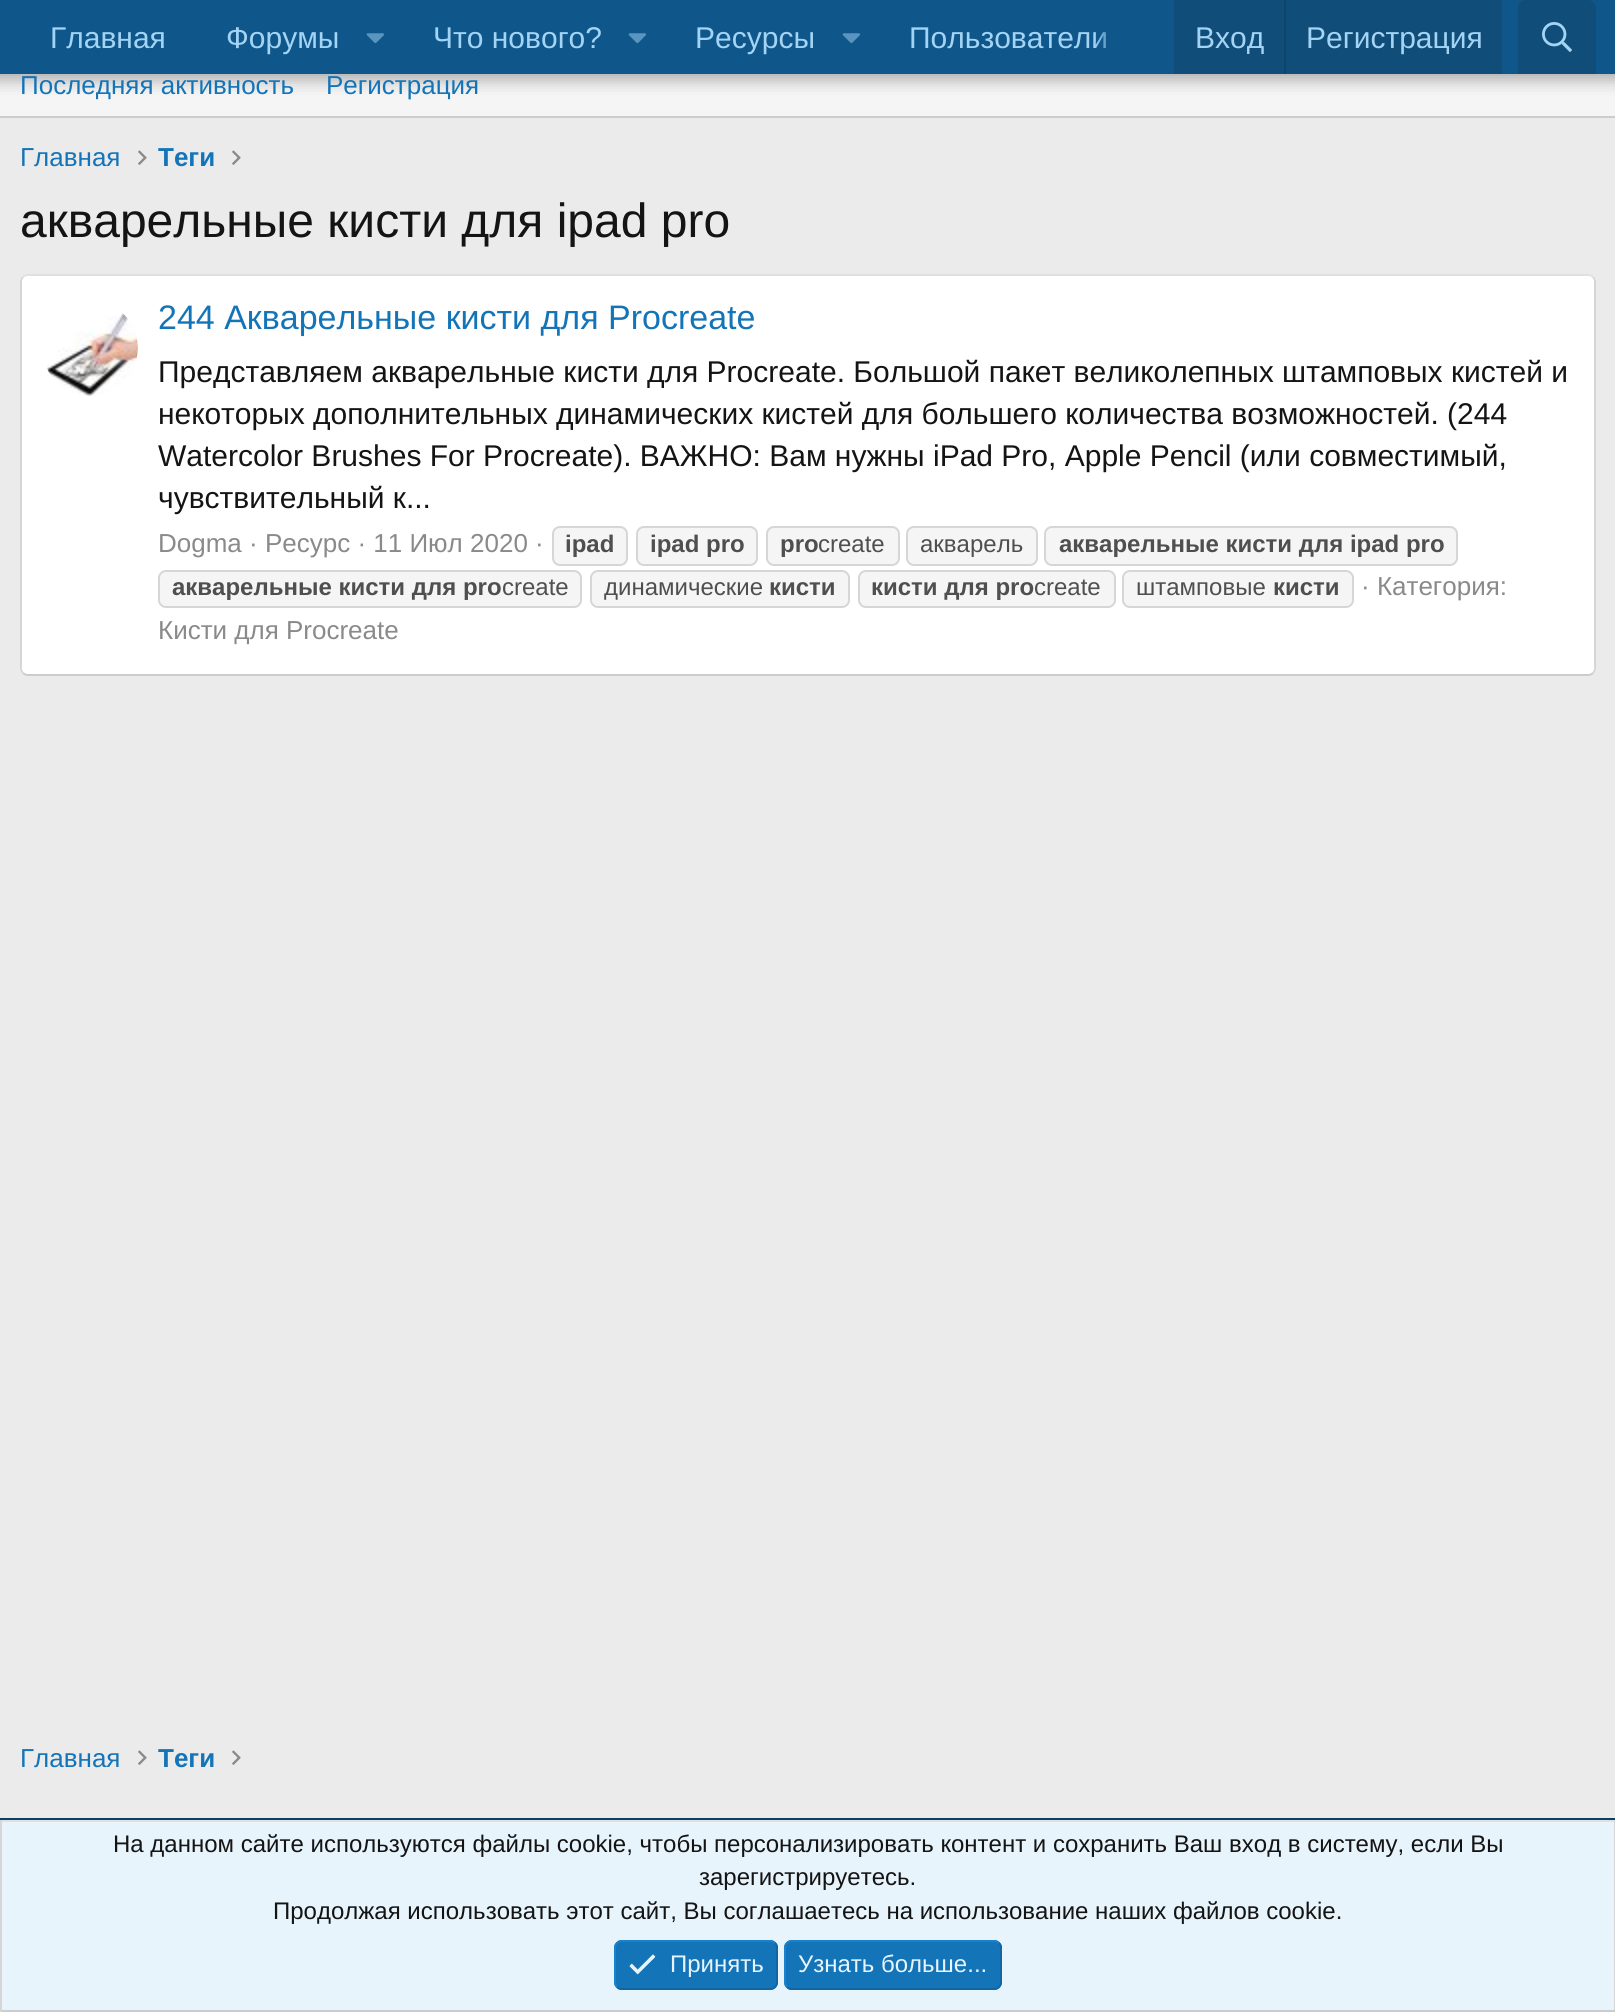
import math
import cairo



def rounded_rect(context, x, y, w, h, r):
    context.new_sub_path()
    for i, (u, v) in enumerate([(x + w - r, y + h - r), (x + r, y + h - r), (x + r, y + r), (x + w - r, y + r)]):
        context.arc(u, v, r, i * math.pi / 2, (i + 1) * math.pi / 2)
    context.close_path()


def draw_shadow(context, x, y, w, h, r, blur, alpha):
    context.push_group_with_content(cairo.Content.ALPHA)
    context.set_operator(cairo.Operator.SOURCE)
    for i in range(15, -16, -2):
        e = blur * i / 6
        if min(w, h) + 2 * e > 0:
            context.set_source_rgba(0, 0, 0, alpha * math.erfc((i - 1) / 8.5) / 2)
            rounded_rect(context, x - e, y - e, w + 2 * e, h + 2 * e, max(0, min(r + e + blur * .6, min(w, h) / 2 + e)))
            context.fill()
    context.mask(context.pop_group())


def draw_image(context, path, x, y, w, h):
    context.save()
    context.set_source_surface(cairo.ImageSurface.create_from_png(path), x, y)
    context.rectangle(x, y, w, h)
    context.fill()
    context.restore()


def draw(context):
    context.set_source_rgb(235 / 255, 235 / 255, 235 / 255)
    context.paint()
    context.set_source_rgb(245 / 255, 245 / 255, 245 / 255)
    context.rectangle(0, 74, 1615, 42)
    context.fill()
    context.set_source_rgb(0, 0, 0)
    draw_shadow(context, -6, -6, 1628, 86, 0, 8, 0.3)
    context.set_source_rgb(15 / 255, 87 / 255, 138 / 255)
    context.rectangle(0, 0, 1615, 74)
    context.fill()
    draw_image(context, "images/1.png", 366, 33, 18, 11)
    draw_image(context, "images/1.png", 628, 33, 18, 11)
    draw_image(context, "images/1.png", 842, 33, 18, 11)
    context.set_source_rgb(16 / 255, 77 / 255, 120 / 255)
    context.rectangle(1174, 0, 328, 74)
    context.fill()
    context.set_source_rgb(17 / 255, 68 / 255, 105 / 255)
    context.rectangle(1284, 0, 2, 74)
    context.fill()
    context.set_source_rgb(16 / 255, 77 / 255, 120 / 255)
    context.new_path()
    context.move_to(1526, 0)
    context.line_to(1588, 0)
    context.curve_to(1592.5, 0, 1596, 3.5, 1596, 8)
    context.line_to(1596, 74)
    context.line_to(1518, 74)
    context.line_to(1518, 8)
    context.curve_to(1518, 3.5, 1521.5, 0, 1526, 0)
    context.close_path()
    context.fill()
    draw_image(context, "images/2.png", 1542, 22, 30, 30)
    context.set_source_rgb(204 / 255, 204 / 255, 204 / 255)
    context.rectangle(0, 116, 1615, 2)
    context.fill()
    draw_image(context, "images/3.png", 138, 150, 9, 15)
    draw_image(context, "images/3.png", 232, 150, 9, 15)
    context.set_source_rgb(1, 1, 1)
    rounded_rect(context, 20, 274, 1576, 402, 8)
    context.fill()
    context.new_path()
    context.move_to(23, 277)
    context.curve_to(24.5, 275.5, 26, 275, 28, 275)
    context.line_to(1588, 275)
    context.curve_to(1590, 275, 1591.5, 275.5, 1593, 277)
    context.set_source_rgb(224 / 255, 224 / 255, 224 / 255)
    context.stroke()
    context.new_path()
    context.move_to(1593, 277)
    context.curve_to(1594.5, 278.5, 1595, 280, 1595, 282)
    context.line_to(1595, 668)
    context.curve_to(1595, 670, 1594.5, 671.5, 1593, 673)
    context.set_source_rgb(214 / 255, 214 / 255, 214 / 255)
    context.stroke()
    context.new_path()
    context.move_to(1593, 673)
    context.curve_to(1591.5, 674.5, 1590, 675, 1588, 675)
    context.line_to(28, 675)
    context.curve_to(26, 675, 24.5, 674.5, 23, 673)
    context.set_source_rgb(204 / 255, 204 / 255, 204 / 255)
    context.stroke()
    context.new_path()
    context.move_to(23, 673)
    context.curve_to(21.5, 671.5, 21, 670, 21, 668)
    context.line_to(21, 282)
    context.curve_to(21, 280, 21.5, 278.5, 23, 277)
    context.set_source_rgb(214 / 255, 214 / 255, 214 / 255)
    context.stroke()
    draw_image(context, "images/4.png", 47, 313, 91, 83)
    context.set_source_rgb(245 / 255, 245 / 255, 245 / 255)
    rounded_rect(context, 553, 527, 74, 38, 7)
    context.fill_preserve()
    context.set_source_rgb(214 / 255, 214 / 255, 214 / 255)
    context.stroke()
    context.set_source_rgb(245 / 255, 245 / 255, 245 / 255)
    rounded_rect(context, 637, 527, 120, 38, 7)
    context.fill_preserve()
    context.set_source_rgb(214 / 255, 214 / 255, 214 / 255)
    context.stroke()
    context.set_source_rgb(245 / 255, 245 / 255, 245 / 255)
    rounded_rect(context, 767, 527, 132, 38, 7)
    context.fill_preserve()
    context.set_source_rgb(214 / 255, 214 / 255, 214 / 255)
    context.stroke()
    context.set_source_rgb(245 / 255, 245 / 255, 245 / 255)
    rounded_rect(context, 907, 527, 130, 38, 7)
    context.fill_preserve()
    context.set_source_rgb(214 / 255, 214 / 255, 214 / 255)
    context.stroke()
    context.set_source_rgb(245 / 255, 245 / 255, 245 / 255)
    rounded_rect(context, 1045, 527, 412, 38, 7)
    context.fill_preserve()
    context.set_source_rgb(214 / 255, 214 / 255, 214 / 255)
    context.stroke()
    context.set_source_rgb(245 / 255, 245 / 255, 245 / 255)
    rounded_rect(context, 159, 571, 422, 36, 7)
    context.fill_preserve()
    context.set_source_rgb(214 / 255, 214 / 255, 214 / 255)
    context.stroke()
    context.set_source_rgb(245 / 255, 245 / 255, 245 / 255)
    rounded_rect(context, 591, 571, 258, 36, 7)
    context.fill_preserve()
    context.set_source_rgb(214 / 255, 214 / 255, 214 / 255)
    context.stroke()
    context.set_source_rgb(245 / 255, 245 / 255, 245 / 255)
    rounded_rect(context, 859, 571, 256, 36, 7)
    context.fill_preserve()
    context.set_source_rgb(214 / 255, 214 / 255, 214 / 255)
    context.stroke()
    context.set_source_rgb(245 / 255, 245 / 255, 245 / 255)
    rounded_rect(context, 1123, 571, 230, 36, 7)
    context.fill_preserve()
    context.set_source_rgb(214 / 255, 214 / 255, 214 / 255)
    context.stroke()
    draw_image(context, "images/3.png", 138, 1750, 9, 15)
    draw_image(context, "images/3.png", 232, 1750, 9, 15)
    context.set_source_rgb(11 / 255, 64 / 255, 101 / 255)
    context.rectangle(0, 1818, 1615, 2)
    context.fill()
    context.set_source_rgb(232 / 255, 244 / 255, 252 / 255)
    context.rectangle(2, 1822, 1612, 188)
    context.fill()
    context.set_source_rgb(224 / 255, 224 / 255, 224 / 255)
    context.rectangle(0, 1820, 1615, 2)
    context.fill()
    context.set_source_rgb(214 / 255, 214 / 255, 214 / 255)
    context.rectangle(1614, 1820, 1, 192)
    context.fill()
    context.set_source_rgb(204 / 255, 204 / 255, 204 / 255)
    context.rectangle(0, 2010, 1615, 2)
    context.fill()
    context.set_source_rgb(214 / 255, 214 / 255, 214 / 255)
    context.rectangle(0, 1820, 2, 192)
    context.fill()
    context.set_source_rgb(20 / 255, 116 / 255, 184 / 255)
    rounded_rect(context, 614, 1940, 164, 50, 8)
    context.fill()
    context.new_path()
    context.move_to(775, 1943)
    context.curve_to(776.5, 1944.5, 777, 1946, 777, 1948)
    context.line_to(777, 1982)
    context.curve_to(777, 1984, 776.5, 1985.5, 775, 1987)
    context.curve_to(773.5, 1988.5, 772, 1989, 770, 1989)
    context.line_to(622, 1989)
    context.curve_to(620, 1989, 618.5, 1988.5, 617, 1987)
    context.set_source_rgb(18 / 255, 101 / 255, 161 / 255)
    context.stroke()
    context.new_path()
    context.move_to(617, 1987)
    context.curve_to(615.5, 1985.5, 615, 1984, 615, 1982)
    context.line_to(615, 1948)
    context.curve_to(615, 1946, 615.5, 1944.5, 617, 1943)
    context.curve_to(618.5, 1941.5, 620, 1941, 622, 1941)
    context.line_to(770, 1941)
    context.curve_to(772, 1941, 773.5, 1941.5, 775, 1943)
    context.set_source_rgb(23 / 255, 130 / 255, 207 / 255)
    context.stroke()
    draw_image(context, "images/5.png", 629, 1954, 27, 21)
    context.set_source_rgb(20 / 255, 116 / 255, 184 / 255)
    rounded_rect(context, 784, 1940, 218, 50, 8)
    context.fill()
    context.new_path()
    context.move_to(999, 1943)
    context.curve_to(1000.5, 1944.5, 1001, 1946, 1001, 1948)
    context.line_to(1001, 1982)
    context.curve_to(1001, 1984, 1000.5, 1985.5, 999, 1987)
    context.curve_to(997.5, 1988.5, 996, 1989, 994, 1989)
    context.line_to(792, 1989)
    context.curve_to(790, 1989, 788.5, 1988.5, 787, 1987)
    context.set_source_rgb(18 / 255, 101 / 255, 161 / 255)
    context.stroke()
    context.new_path()
    context.move_to(787, 1987)
    context.curve_to(785.5, 1985.5, 785, 1984, 785, 1982)
    context.line_to(785, 1948)
    context.curve_to(785, 1946, 785.5, 1944.5, 787, 1943)
    context.curve_to(788.5, 1941.5, 790, 1941, 792, 1941)
    context.line_to(994, 1941)
    context.curve_to(996, 1941, 997.5, 1941.5, 999, 1943)
    context.set_source_rgb(23 / 255, 130 / 255, 207 / 255)
    context.stroke()
    context.select_font_face("Liberation Sans")
    context.set_font_size(30)
    context.set_source_rgb(163 / 255, 212 / 255, 245 / 255)
    context.move_to(50, 48)
    context.show_text("Главная")
    context.move_to(226, 48)
    context.show_text("Форумы")
    context.move_to(433, 48)
    context.show_text("Что нового?")
    context.move_to(695, 48)
    context.show_text("Ресурсы")
    context.move_to(909, 48)
    context.show_text("Пользователи")
    gradient = cairo.LinearGradient(1094, 37, 1174, 37)
    gradient.add_color_stop_rgba(0, 15 / 255, 87 / 255, 138 / 255, 0)
    gradient.add_color_stop_rgba(0.33, 15 / 255, 87 / 255, 138 / 255, 1)
    context.set_source(gradient)
    context.rectangle(1095, 32, 11, 16)
    context.fill()
    context.set_source_rgb(163 / 255, 212 / 255, 245 / 255)
    context.move_to(1195, 48)
    context.show_text("Вход")
    context.move_to(1306, 48)
    context.show_text("Регистрация")
    context.set_font_size(26)
    context.set_source_rgb(20 / 255, 116 / 255, 184 / 255)
    context.move_to(20, 94)
    context.show_text("Последняя активность")
    context.move_to(326, 94)
    context.show_text("Регистрация")
    context.move_to(20, 166)
    context.show_text("Главная")
    context.select_font_face("Liberation Sans", cairo.FontSlant.NORMAL, cairo.FontWeight.BOLD)
    context.move_to(158, 166)
    context.show_text("Теги")
    context.select_font_face("Liberation Sans")
    context.set_font_size(48)
    context.set_source_rgb(20 / 255, 20 / 255, 20 / 255)
    context.move_to(20, 237)
    context.show_text("акварельные кисти для ipad pro")
    context.set_font_size(34)
    context.set_source_rgb(20 / 255, 116 / 255, 184 / 255)
    context.move_to(158, 329)
    context.show_text("244 Акварельные кисти для Procreate")
    context.set_font_size(30)
    context.set_source_rgb(20 / 255, 20 / 255, 20 / 255)
    context.move_to(158, 382)
    context.show_text("Представляем акварельные кисти для Procreate. Большой пакет великолепных штамповых кистей и")
    context.move_to(158, 424)
    context.show_text("некоторых дополнительных динамических кистей для большего количества возможностей. (244")
    context.move_to(158, 466)
    context.show_text("Watercolor Brushes For Procreate). ВАЖНО: Вам нужны iPad Pro, Apple Pencil (или совместимый,")
    context.move_to(158, 508)
    context.show_text("чувствительный к...")
    context.set_font_size(26)
    context.set_source_rgb(138 / 255, 138 / 255, 138 / 255)
    context.move_to(158, 552)
    context.show_text("Dogma · Ресурс · 11 Июл 2020 ·")
    context.select_font_face("Liberation Sans", cairo.FontSlant.NORMAL, cairo.FontWeight.BOLD)
    context.set_font_size(24)
    context.set_source_rgb(79 / 255, 79 / 255, 79 / 255)
    context.move_to(565, 552)
    context.show_text("ipad")
    context.move_to(650, 552)
    context.show_text("ipad pro")
    context.move_to(780, 552)
    context.show_text("pro")
    context.select_font_face("Liberation Sans")
    context.move_to(818, 552)
    context.show_text("create")
    context.move_to(920, 552)
    context.show_text("акварель")
    context.select_font_face("Liberation Sans", cairo.FontSlant.NORMAL, cairo.FontWeight.BOLD)
    context.move_to(1059, 552)
    context.show_text("акварельные кисти для ipad pro")
    context.move_to(172, 595)
    context.show_text("акварельные кисти для pro")
    context.select_font_face("Liberation Sans")
    context.move_to(502, 595)
    context.show_text("create")
    context.move_to(604, 595)
    context.show_text("динамические")
    context.select_font_face("Liberation Sans", cairo.FontSlant.NORMAL, cairo.FontWeight.BOLD)
    context.move_to(769, 595)
    context.show_text("кисти")
    context.move_to(871, 595)
    context.show_text("кисти для pro")
    context.select_font_face("Liberation Sans")
    context.move_to(1034, 595)
    context.show_text("create")
    context.move_to(1136, 595)
    context.show_text("штамповые")
    context.select_font_face("Liberation Sans", cairo.FontSlant.NORMAL, cairo.FontWeight.BOLD)
    context.move_to(1273, 595)
    context.show_text("кисти")
    context.select_font_face("Liberation Sans")
    context.set_font_size(26)
    context.set_source_rgb(138 / 255, 138 / 255, 138 / 255)
    context.move_to(1361, 595)
    context.show_text("· Категория:")
    context.move_to(158, 639)
    context.show_text("Кисти для Procreate")
    context.set_source_rgb(20 / 255, 116 / 255, 184 / 255)
    context.move_to(20, 1767)
    context.show_text("Главная")
    context.select_font_face("Liberation Sans", cairo.FontSlant.NORMAL, cairo.FontWeight.BOLD)
    context.move_to(158, 1767)
    context.show_text("Теги")
    context.select_font_face("Liberation Sans")
    context.set_font_size(24)
    context.set_source_rgb(20 / 255, 20 / 255, 20 / 255)
    context.move_to(113, 1852)
    context.show_text("На данном сайте используются файлы cookie, чтобы персонализировать контент и сохранить Ваш вход в систему, если Вы")
    context.move_to(699, 1885)
    context.show_text("зарегистрируетесь.")
    context.move_to(273, 1919)
    context.show_text("Продолжая использовать этот сайт, Вы соглашаетесь на использование наших файлов cookie.")
    context.set_source_rgb(232 / 255, 244 / 255, 252 / 255)
    context.move_to(670, 1972)
    context.show_text("Принять")
    context.move_to(798, 1972)
    context.show_text("Узнать больше...")


surface = cairo.ImageSurface(cairo.Format.RGB24, 1615, 2012)
context = cairo.Context(surface)
options = cairo.FontOptions()
options.set_hint_metrics(cairo.HintMetrics.OFF)
options.set_hint_style(cairo.HintStyle.NONE)
context.set_font_options(options)
context.set_miter_limit(4)
draw(context)
surface.write_to_png("out.png")
